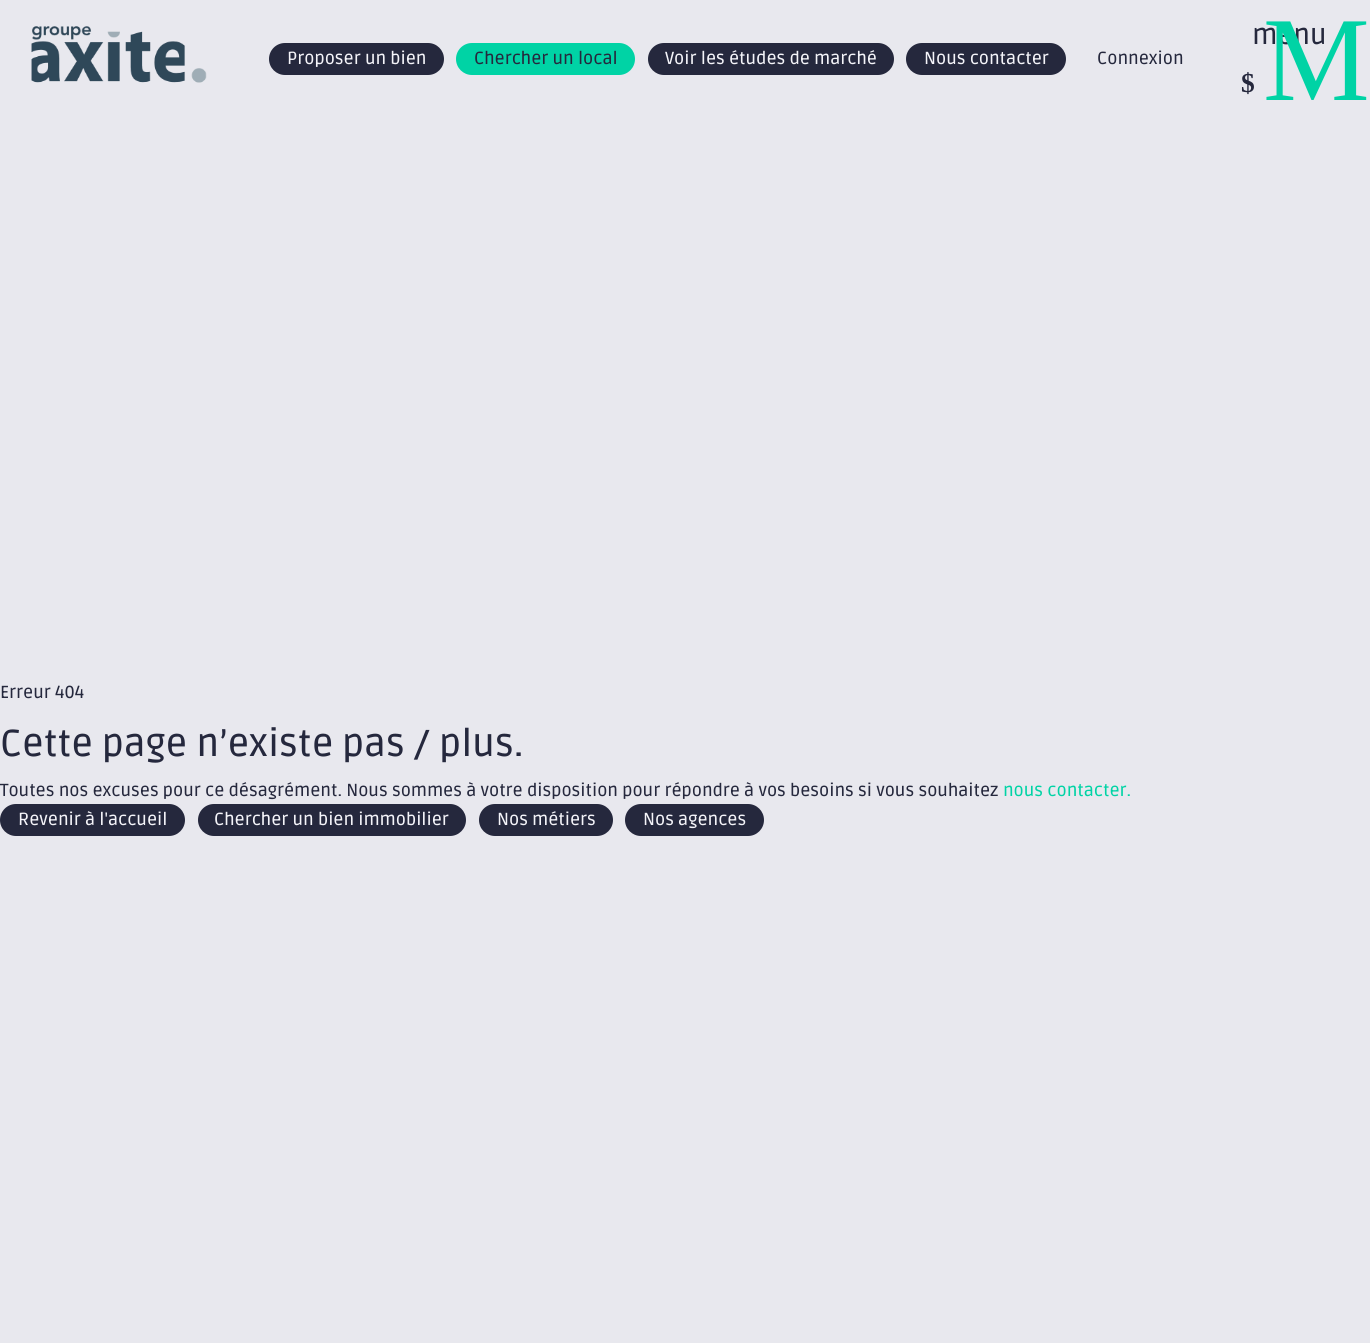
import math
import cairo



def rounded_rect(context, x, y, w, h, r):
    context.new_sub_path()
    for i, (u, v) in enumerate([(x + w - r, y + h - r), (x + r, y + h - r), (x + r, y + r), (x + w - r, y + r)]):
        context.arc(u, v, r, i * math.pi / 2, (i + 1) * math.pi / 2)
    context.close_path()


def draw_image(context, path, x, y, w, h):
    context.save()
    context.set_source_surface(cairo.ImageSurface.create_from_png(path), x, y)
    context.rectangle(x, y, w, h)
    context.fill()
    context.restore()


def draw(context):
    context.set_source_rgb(232 / 255, 232 / 255, 238 / 255)
    context.paint()
    context.set_source_rgb(37 / 255, 40 / 255, 61 / 255)
    rounded_rect(context, 0, 804, 185, 32, 16)
    context.fill()
    rounded_rect(context, 198, 804, 268, 32, 16)
    context.fill()
    rounded_rect(context, 479, 804, 134, 32, 16)
    context.fill()
    rounded_rect(context, 625, 804, 139, 32, 16)
    context.fill()
    draw_image(context, "images/1.png", 31, 26, 176, 57)
    rounded_rect(context, 269, 43, 175, 32, 16)
    context.fill()
    context.set_source_rgb(0, 211 / 255, 165 / 255)
    rounded_rect(context, 456, 43, 179, 32, 16)
    context.fill()
    context.set_source_rgb(37 / 255, 40 / 255, 61 / 255)
    rounded_rect(context, 648, 43, 246, 32, 16)
    context.fill()
    rounded_rect(context, 906, 43, 160, 32, 16)
    context.fill()
    context.select_font_face("Ruda Medium")
    context.set_font_size(17.5)
    context.move_to(0, 698)
    context.show_text("Erreur 404")
    context.set_font_size(37.5)
    context.move_to(0, 756)
    context.show_text("Cette page n’existe pas / plus.")
    context.set_font_size(17.5)
    context.move_to(0, 796)
    context.show_text("Toutes nos excuses pour ce désagrément. Nous sommes à votre disposition pour répondre à vos besoins si vous souhaitez")
    context.set_source_rgb(0, 211 / 255, 165 / 255)
    context.move_to(1003, 796)
    context.show_text("nous contacter.")
    context.set_source_rgb(244 / 255, 244 / 255, 249 / 255)
    context.move_to(18, 825)
    context.show_text("Revenir à l'accueil")
    context.move_to(214, 825)
    context.show_text("Chercher un bien immobilier")
    context.move_to(497, 825)
    context.show_text("Nos métiers")
    context.move_to(643, 825)
    context.show_text("Nos agences")
    context.move_to(287, 64)
    context.show_text("Proposer un bien")
    context.set_source_rgb(37 / 255, 40 / 255, 61 / 255)
    context.move_to(474, 64)
    context.show_text("Chercher un local")
    context.set_source_rgb(244 / 255, 244 / 255, 249 / 255)
    context.move_to(665, 64)
    context.show_text("Voir les études de marché")
    context.move_to(924, 64)
    context.show_text("Nous contacter")
    context.set_source_rgb(37 / 255, 40 / 255, 61 / 255)
    context.move_to(1097, 64)
    context.show_text("Connexion")
    context.set_font_size(27.5)
    context.move_to(1252, 44)
    context.show_text("menu")
    context.select_font_face("Liberation Serif")
    context.set_font_size(120)
    context.set_source_rgb(0, 211 / 255, 165 / 255)
    context.move_to(1263, 100)
    context.show_text("M")
    context.select_font_face("Liberation Serif", cairo.FontSlant.NORMAL, cairo.FontWeight.BOLD)
    context.set_font_size(27.5)
    context.set_source_rgb(37 / 255, 40 / 255, 61 / 255)
    context.move_to(1241, 92)
    context.show_text("$")


surface = cairo.ImageSurface(cairo.Format.RGB24, 1370, 1343)
context = cairo.Context(surface)
options = cairo.FontOptions()
options.set_hint_metrics(cairo.HintMetrics.OFF)
options.set_hint_style(cairo.HintStyle.NONE)
context.set_font_options(options)
context.set_miter_limit(4)
draw(context)
surface.write_to_png("out.png")
